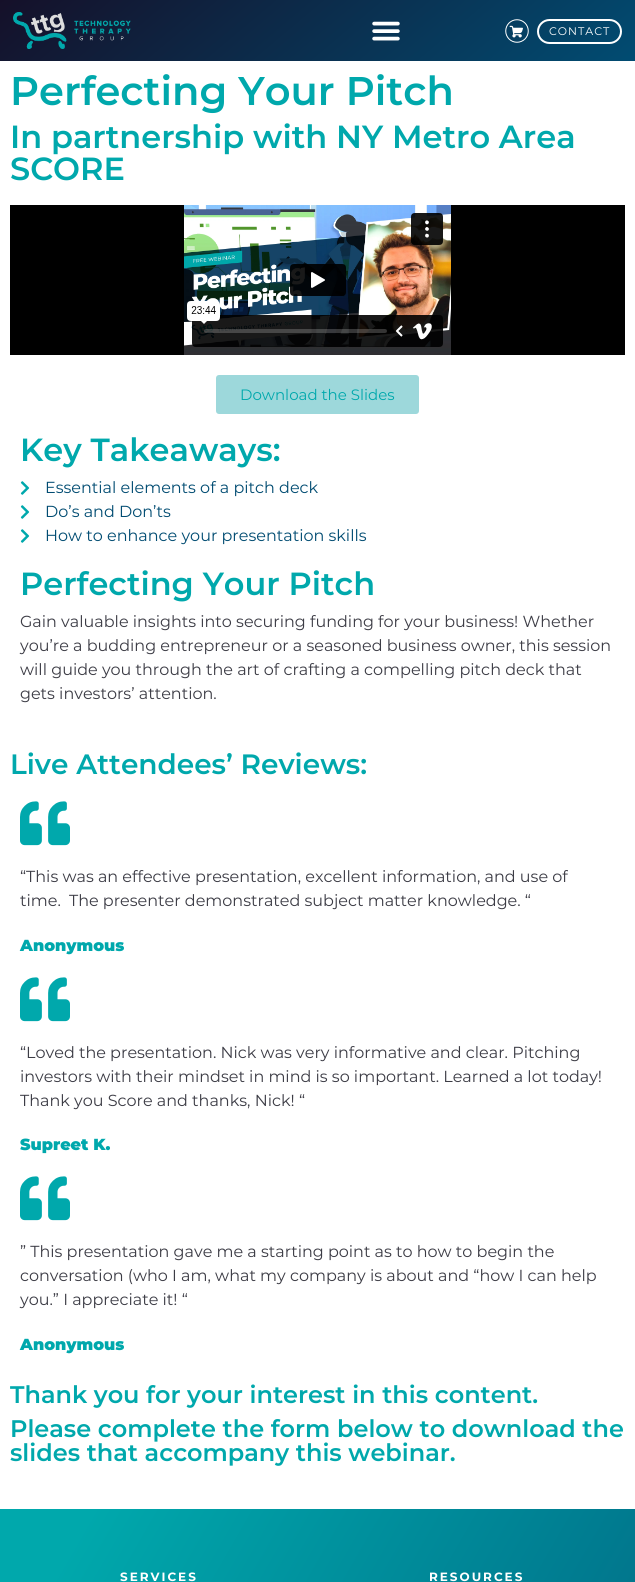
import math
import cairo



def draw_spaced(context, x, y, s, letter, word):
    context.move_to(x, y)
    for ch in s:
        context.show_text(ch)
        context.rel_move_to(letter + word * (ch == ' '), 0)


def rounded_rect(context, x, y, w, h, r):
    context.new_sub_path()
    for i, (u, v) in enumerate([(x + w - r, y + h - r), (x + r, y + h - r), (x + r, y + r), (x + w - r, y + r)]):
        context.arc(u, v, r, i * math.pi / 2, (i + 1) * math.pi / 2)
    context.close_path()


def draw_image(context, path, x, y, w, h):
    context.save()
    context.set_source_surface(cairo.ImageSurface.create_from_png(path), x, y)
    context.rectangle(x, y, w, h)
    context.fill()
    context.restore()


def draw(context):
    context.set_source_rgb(1, 1, 1)
    context.paint()
    gradient = cairo.LinearGradient(171, -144, 464, 205)
    gradient.add_color_stop_rgba(0, 21 / 255, 16 / 255, 41 / 255, 1)
    gradient.add_color_stop_rgba(1, 1 / 255, 76 / 255, 114 / 255, 1)
    context.set_source(gradient)
    context.rectangle(0, 0, 635, 61)
    context.fill()
    draw_image(context, "images/1.png", 13, 12, 118, 37)
    draw_image(context, "images/2.png", 372, 21, 28, 20)
    draw_image(context, "images/3.png", 505, 19, 24, 24)
    rounded_rect(context, 538, 20, 83, 23, 11.5)
    context.set_source_rgb(1, 1, 1)
    context.stroke()
    context.set_source_rgb(0, 0, 0)
    context.rectangle(10, 205, 615, 150)
    context.fill()
    draw_image(context, "images/4.png", 184, 205, 267, 150)
    context.set_source_rgb(157 / 255, 216 / 255, 219 / 255)
    rounded_rect(context, 216, 375, 203, 39, 3)
    context.fill()
    draw_image(context, "images/5.png", 20, 481, 10, 14)
    draw_image(context, "images/5.png", 20, 505, 10, 14)
    draw_image(context, "images/5.png", 20, 529, 10, 14)
    draw_image(context, "images/6.png", 20, 801, 50, 45)
    draw_image(context, "images/6.png", 20, 977, 50, 45)
    draw_image(context, "images/6.png", 20, 1176, 50, 45)
    gradient = cairo.LinearGradient(-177, 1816, 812, 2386)
    gradient.add_color_stop_rgba(0.07, 0, 168 / 255, 172 / 255, 1)
    gradient.add_color_stop_rgba(0.9, 1 / 255, 76 / 255, 114 / 255, 1)
    context.set_source(gradient)
    context.rectangle(0, 1509, 635, 73)
    context.fill()
    context.select_font_face("Montserrat")
    context.set_font_size(11)
    context.set_source_rgb(1, 1, 1)
    draw_spaced(context, 549, 35, "CONTACT", 1, 0)
    context.select_font_face("Montserrat SemiBold")
    context.set_font_size(40)
    context.set_source_rgb(0, 168 / 255, 172 / 255)
    context.move_to(10, 105)
    context.show_text("Perfecting Your Pitch")
    context.set_font_size(32)
    context.move_to(10, 148)
    context.show_text("In partnership with NY Metro Area")
    context.move_to(10, 180)
    context.show_text("SCORE")
    context.select_font_face("Montserrat")
    context.set_font_size(15)
    context.move_to(240, 400)
    context.show_text("Download the Slides")
    context.select_font_face("Montserrat SemiBold")
    context.set_font_size(32)
    context.move_to(20, 461)
    context.show_text("Key Takeaways:")
    context.select_font_face("Montserrat")
    context.set_font_size(16)
    context.set_source_rgb(1 / 255, 76 / 255, 114 / 255)
    context.move_to(45, 493)
    context.show_text("Essential elements of a pitch deck")
    context.move_to(45, 517)
    context.show_text("Do’s and Don’ts")
    context.move_to(45, 541)
    context.show_text("How to enhance your presentation skills")
    context.select_font_face("Montserrat SemiBold")
    context.set_font_size(32)
    context.set_source_rgb(0, 168 / 255, 172 / 255)
    context.move_to(20, 595)
    context.show_text("Perfecting Your Pitch")
    context.select_font_face("Montserrat")
    context.set_font_size(16)
    context.set_source_rgb(60 / 255, 60 / 255, 69 / 255)
    context.move_to(20, 627)
    context.show_text("Gain valuable insights into securing funding for your business! Whether")
    context.move_to(20, 651)
    context.show_text("you’re a budding entrepreneur or a seasoned business owner, this session")
    context.move_to(20, 675)
    context.show_text("will guide you through the art of crafting a compelling pitch deck that")
    context.move_to(20, 699)
    context.show_text("gets investors’ attention.")
    context.select_font_face("Montserrat SemiBold")
    context.set_font_size(28)
    context.set_source_rgb(0, 168 / 255, 172 / 255)
    context.move_to(10, 774)
    context.show_text("Live Attendees’ Reviews:")
    context.select_font_face("Montserrat")
    context.set_font_size(16)
    context.set_source_rgb(60 / 255, 60 / 255, 69 / 255)
    context.move_to(20, 882)
    context.show_text("“This was an effective presentation, excellent information, and use of")
    context.move_to(20, 906)
    context.show_text("time.")
    context.move_to(69, 906)
    context.show_text("The presenter demonstrated subject matter knowledge. “")
    context.select_font_face("Montserrat Black")
    context.set_source_rgb(0, 168 / 255, 172 / 255)
    context.move_to(20, 951)
    context.show_text("Anonymous")
    context.select_font_face("Montserrat")
    context.set_source_rgb(60 / 255, 60 / 255, 69 / 255)
    context.move_to(20, 1058)
    context.show_text("“Loved the presentation. Nick was very informative and clear. Pitching")
    context.move_to(20, 1082)
    context.show_text("investors with their mindset in mind is so important. Learned a lot today!")
    context.move_to(20, 1106)
    context.show_text("Thank you Score and thanks, Nick! “")
    context.select_font_face("Montserrat Black")
    context.set_source_rgb(0, 168 / 255, 172 / 255)
    context.move_to(20, 1150)
    context.show_text("Supreet K.")
    context.select_font_face("Montserrat")
    context.set_source_rgb(60 / 255, 60 / 255, 69 / 255)
    context.move_to(20, 1257)
    context.show_text("” This presentation gave me a starting point as to how to begin the")
    context.move_to(20, 1281)
    context.show_text("conversation (who I am, what my company is about and “how I can help")
    context.move_to(20, 1305)
    context.show_text("you.” I appreciate it! “")
    context.select_font_face("Montserrat Black")
    context.set_source_rgb(0, 168 / 255, 172 / 255)
    context.move_to(20, 1350)
    context.show_text("Anonymous")
    context.select_font_face("Montserrat SemiBold")
    context.set_font_size(24)
    context.move_to(10, 1403)
    context.show_text("Thank you for your interest in this content.")
    context.move_to(10, 1437)
    context.show_text("Please complete the form below to download the")
    context.move_to(10, 1461)
    context.show_text("slides that accompany this webinar.")
    context.select_font_face("Montserrat", cairo.FontSlant.NORMAL, cairo.FontWeight.BOLD)
    context.set_font_size(12)
    context.set_source_rgb(1, 1, 1)
    draw_spaced(context, 120, 1581, "SERVICES", 2, 0)
    draw_spaced(context, 429, 1581, "RESOURCES", 2, 0)


surface = cairo.ImageSurface(cairo.Format.RGB24, 635, 1582)
context = cairo.Context(surface)
options = cairo.FontOptions()
options.set_hint_metrics(cairo.HintMetrics.OFF)
options.set_hint_style(cairo.HintStyle.NONE)
context.set_font_options(options)
context.set_miter_limit(4)
draw(context)
surface.write_to_png("out.png")
